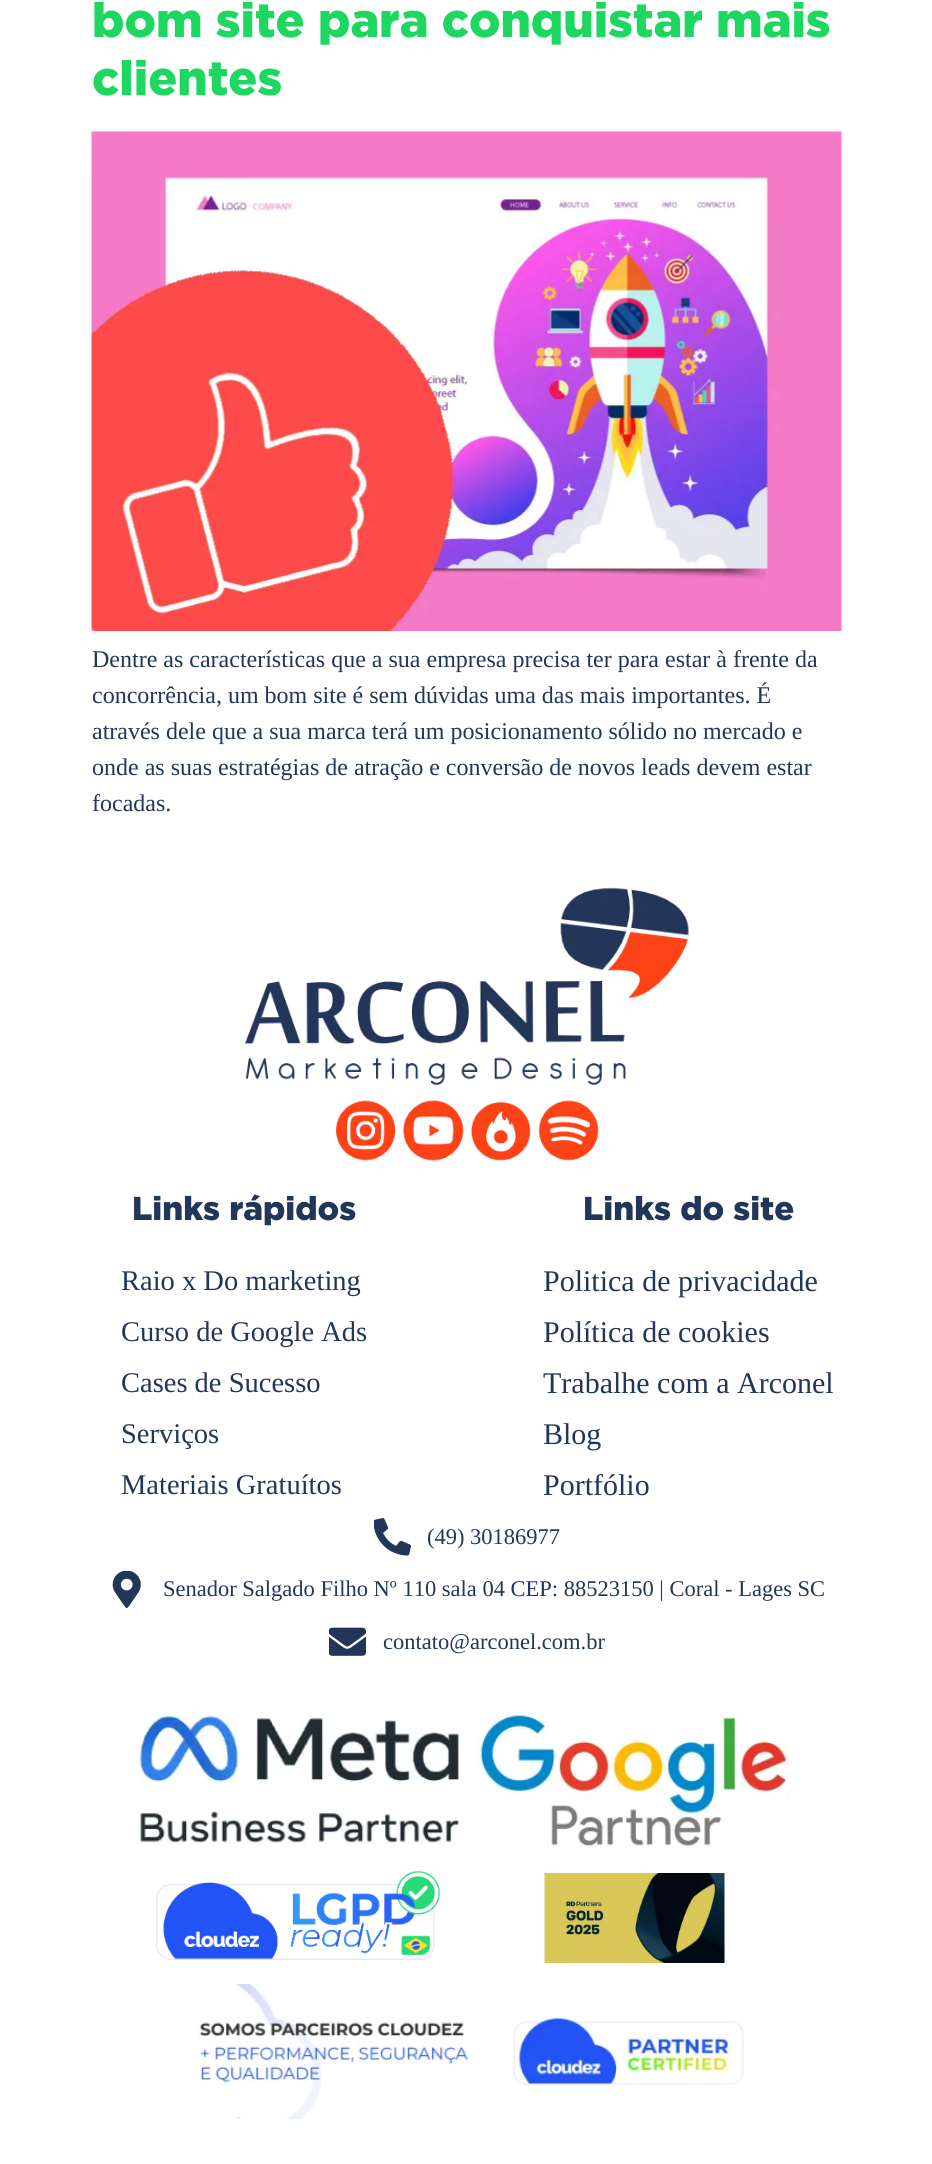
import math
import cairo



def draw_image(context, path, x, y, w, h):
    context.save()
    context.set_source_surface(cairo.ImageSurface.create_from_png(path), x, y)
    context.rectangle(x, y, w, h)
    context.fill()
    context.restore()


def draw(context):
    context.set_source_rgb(1, 1, 1)
    context.paint()
    draw_image(context, "images/1.png", 91, 131, 751, 500)
    draw_image(context, "images/2.png", 244, 887, 445, 199)
    draw_image(context, "images/3.png", 336, 1100, 60, 61)
    draw_image(context, "images/4.png", 403, 1100, 61, 61)
    draw_image(context, "images/5.png", 471, 1102, 60, 59)
    draw_image(context, "images/6.png", 538, 1100, 61, 61)
    draw_image(context, "images/7.png", 374, 1518, 37, 38)
    draw_image(context, "images/8.png", 112, 1571, 29, 37)
    draw_image(context, "images/9.png", 329, 1627, 37, 29)
    draw_image(context, "images/10.png", 138, 1715, 323, 130)
    draw_image(context, "images/11.png", 478, 1712, 311, 136)
    draw_image(context, "images/12.png", 156, 1870, 285, 90)
    draw_image(context, "images/13.png", 544, 1873, 181, 90)
    draw_image(context, "images/14.png", 197, 1984, 547, 135)
    context.select_font_face("Gotham Black")
    context.set_font_size(48)
    context.set_source_rgb(30 / 255, 215 / 255, 96 / 255)
    context.move_to(92, 37)
    context.show_text("bom site para conquistar mais")
    context.move_to(92, 95)
    context.show_text("clientes")
    context.select_font_face("Liberation Serif")
    context.set_font_size(24)
    context.set_source_rgb(34 / 255, 54 / 255, 89 / 255)
    context.move_to(92, 667)
    context.show_text("Dentre as características que a sua empresa precisa ter para estar à frente da")
    context.move_to(92, 703)
    context.show_text("concorrência, um bom site é sem dúvidas uma das mais importantes. É")
    context.move_to(92, 739)
    context.show_text("através dele que a sua marca terá um posicionamento sólido no mercado e")
    context.move_to(92, 775)
    context.show_text("onde as suas estratégias de atração e conversão de novos leads devem estar")
    context.move_to(92, 811)
    context.show_text("focadas.")
    context.select_font_face("Gotham Black")
    context.set_font_size(33)
    context.move_to(132, 1220)
    context.show_text("Links rápidos")
    context.select_font_face("Liberation Serif")
    context.set_font_size(28.5)
    context.move_to(121, 1290)
    context.show_text("Raio x Do marketing")
    context.move_to(121, 1341)
    context.show_text("Curso de Google Ads")
    context.move_to(121, 1392)
    context.show_text("Cases de Sucesso")
    context.move_to(121, 1443)
    context.show_text("Serviços")
    context.move_to(121, 1494)
    context.show_text("Materiais Gratuítos")
    context.select_font_face("Gotham Black")
    context.set_font_size(33)
    context.move_to(583, 1220)
    context.show_text("Links do site")
    context.select_font_face("Liberation Serif")
    context.set_font_size(30)
    context.move_to(543, 1291)
    context.show_text("Politica de privacidade")
    context.move_to(543, 1342)
    context.show_text("Política de cookies")
    context.move_to(543, 1393)
    context.show_text("Trabalhe com a Arconel")
    context.move_to(543, 1444)
    context.show_text("Blog")
    context.move_to(543, 1495)
    context.show_text("Portfólio")
    context.set_font_size(22.5)
    context.move_to(427, 1544)
    context.show_text("(49) 30186977")
    context.move_to(163, 1596)
    context.show_text("Senador Salgado Filho Nº 110 sala 04 CEP: 88523150 | Coral - Lages SC")
    context.move_to(383, 1649)
    context.show_text("contato@arconel.com.br")


surface = cairo.ImageSurface(cairo.Format.RGB24, 932, 2164)
context = cairo.Context(surface)
options = cairo.FontOptions()
options.set_hint_metrics(cairo.HintMetrics.OFF)
options.set_hint_style(cairo.HintStyle.NONE)
context.set_font_options(options)
context.set_miter_limit(4)
draw(context)
surface.write_to_png("out.png")
